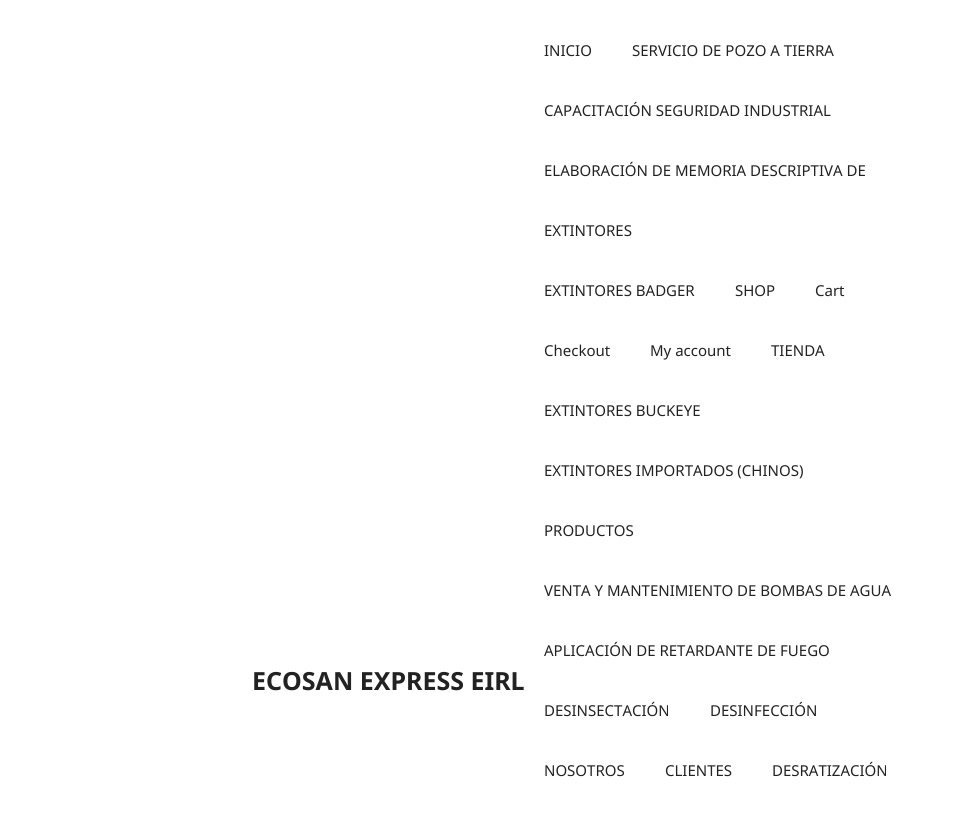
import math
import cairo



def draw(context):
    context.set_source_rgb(1, 1, 1)
    context.paint()
    context.select_font_face("Noto Sans", cairo.FontSlant.NORMAL, cairo.FontWeight.BOLD)
    context.set_font_size(25)
    context.set_source_rgb(34 / 255, 34 / 255, 34 / 255)
    context.move_to(252, 690)
    context.show_text("ECOSAN EXPRESS EIRL")
    context.select_font_face("Noto Sans")
    context.set_font_size(15)
    context.move_to(544, 56)
    context.show_text("INICIO")
    context.move_to(632, 56)
    context.show_text("SERVICIO DE POZO A TIERRA")
    context.move_to(544, 116)
    context.show_text("CAPACITACIÓN SEGURIDAD INDUSTRIAL")
    context.move_to(544, 176)
    context.show_text("ELABORACIÓN DE MEMORIA DESCRIPTIVA DE")
    context.move_to(544, 236)
    context.show_text("EXTINTORES")
    context.move_to(544, 296)
    context.show_text("EXTINTORES BADGER")
    context.move_to(735, 296)
    context.show_text("SHOP")
    context.move_to(815, 296)
    context.show_text("Cart")
    context.move_to(544, 356)
    context.show_text("Checkout")
    context.move_to(650, 356)
    context.show_text("My account")
    context.move_to(771, 356)
    context.show_text("TIENDA")
    context.move_to(544, 416)
    context.show_text("EXTINTORES BUCKEYE")
    context.move_to(544, 476)
    context.show_text("EXTINTORES IMPORTADOS (CHINOS)")
    context.move_to(544, 536)
    context.show_text("PRODUCTOS")
    context.move_to(544, 596)
    context.show_text("VENTA Y MANTENIMIENTO DE BOMBAS DE AGUA")
    context.move_to(544, 656)
    context.show_text("APLICACIÓN DE RETARDANTE DE FUEGO")
    context.move_to(544, 716)
    context.show_text("DESINSECTACIÓN")
    context.move_to(710, 716)
    context.show_text("DESINFECCIÓN")
    context.move_to(544, 776)
    context.show_text("NOSOTROS")
    context.move_to(665, 776)
    context.show_text("CLIENTES")
    context.move_to(772, 776)
    context.show_text("DESRATIZACIÓN")


surface = cairo.ImageSurface(cairo.Format.RGB24, 959, 820)
context = cairo.Context(surface)
options = cairo.FontOptions()
options.set_hint_metrics(cairo.HintMetrics.OFF)
options.set_hint_style(cairo.HintStyle.NONE)
context.set_font_options(options)
context.set_miter_limit(4)
draw(context)
surface.write_to_png("out.png")
